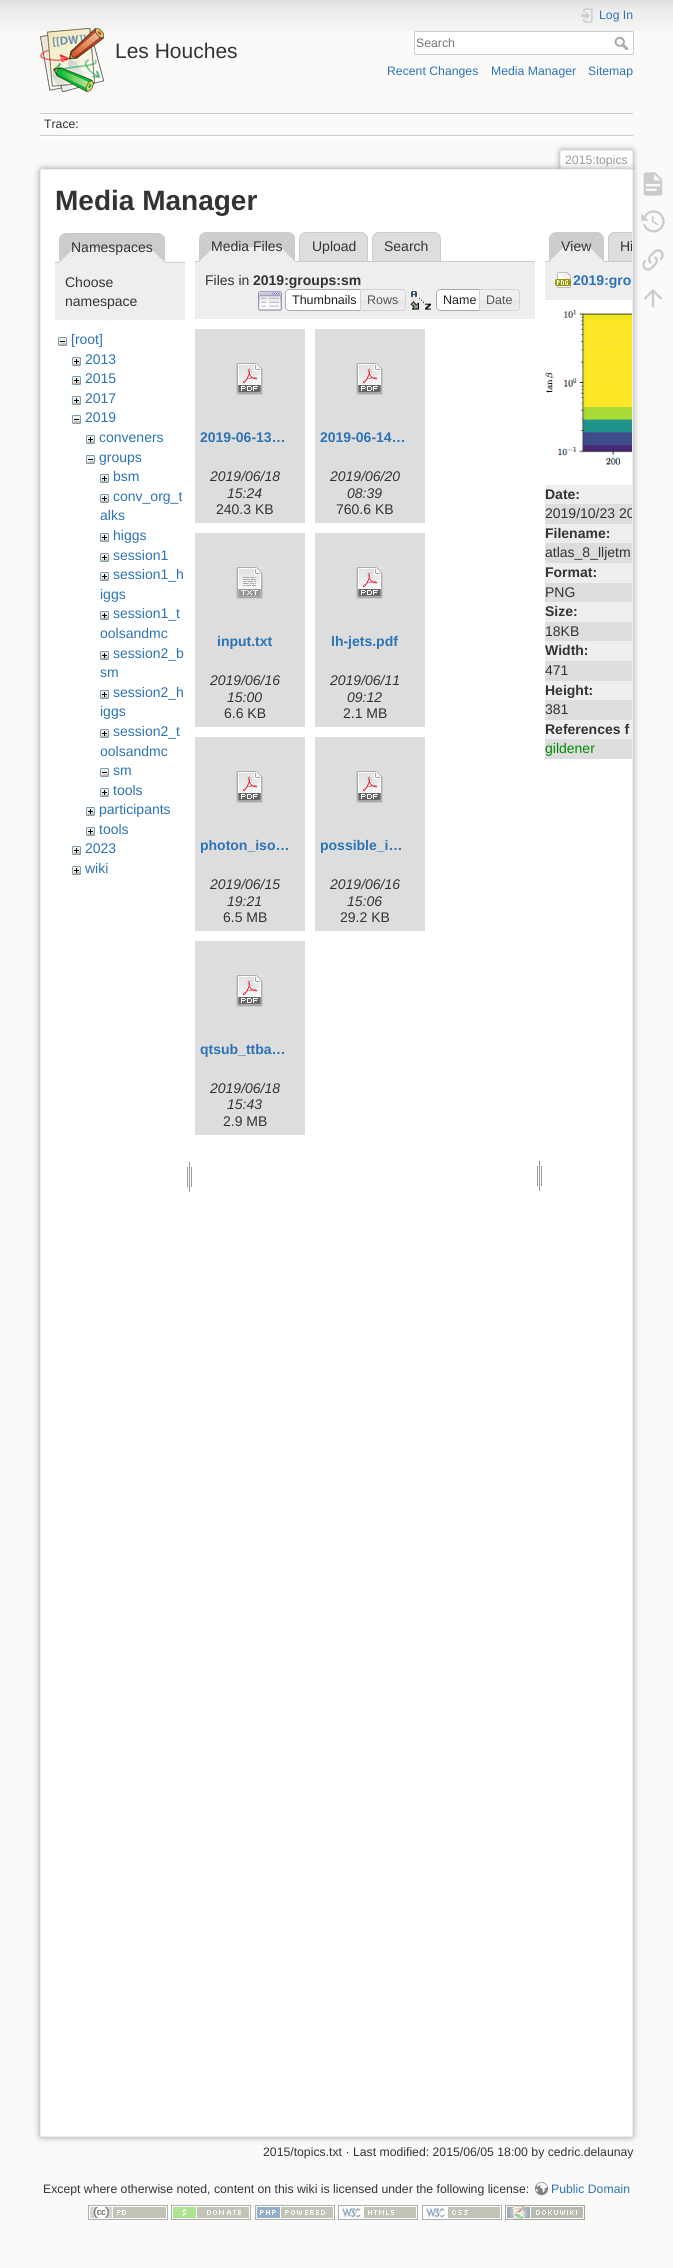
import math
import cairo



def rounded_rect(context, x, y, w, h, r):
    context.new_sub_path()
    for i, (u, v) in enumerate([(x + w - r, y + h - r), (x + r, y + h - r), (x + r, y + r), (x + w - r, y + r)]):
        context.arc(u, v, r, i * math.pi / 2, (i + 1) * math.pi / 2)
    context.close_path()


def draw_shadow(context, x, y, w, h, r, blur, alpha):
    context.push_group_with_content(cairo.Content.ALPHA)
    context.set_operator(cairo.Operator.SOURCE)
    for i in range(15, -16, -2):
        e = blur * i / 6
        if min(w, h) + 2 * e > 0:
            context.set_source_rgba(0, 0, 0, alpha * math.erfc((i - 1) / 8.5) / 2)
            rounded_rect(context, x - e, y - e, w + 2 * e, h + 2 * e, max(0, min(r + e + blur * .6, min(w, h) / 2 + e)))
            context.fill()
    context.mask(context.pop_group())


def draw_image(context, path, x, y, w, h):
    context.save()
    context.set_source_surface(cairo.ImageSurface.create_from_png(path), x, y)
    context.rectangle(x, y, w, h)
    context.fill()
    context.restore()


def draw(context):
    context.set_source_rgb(251 / 255, 250 / 255, 249 / 255)
    context.paint()
    draw_image(context, "images/1.png", 0, 0, 673, 31)
    draw_image(context, "images/2.png", 40, 28, 64, 64)
    draw_image(context, "images/3.png", 581, 8, 12, 15)
    context.set_source_rgb(1, 1, 1)
    rounded_rect(context, 414.5, 31.5, 219, 23, 1.5)
    context.fill_preserve()
    context.set_source_rgb(204 / 255, 204 / 255, 204 / 255)
    context.set_line_width(1)
    context.stroke()
    draw_image(context, "images/4.png", 614, 36, 14, 14)
    context.rectangle(40, 113, 593, 1)
    context.fill()
    context.set_source_rgb(1, 1, 1)
    context.rectangle(40, 136, 593, 1)
    context.fill()
    context.rectangle(40, 114, 593, 1)
    context.fill()
    context.set_source_rgb(204 / 255, 204 / 255, 204 / 255)
    context.rectangle(40, 135, 593, 1)
    context.fill()
    context.save()
    context.rectangle(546, 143, 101, 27)
    context.clip()
    context.set_source_rgb(153 / 255, 153 / 255, 153 / 255)
    draw_shadow(context, 560, 150, 73, 20, 2, 3, 1)
    context.restore()
    context.set_source_rgb(1, 1, 1)
    context.new_path()
    context.move_to(562, 151)
    context.line_to(631, 151)
    context.curve_to(631.5, 151, 632, 151.5, 632, 152)
    context.line_to(632, 170)
    context.line_to(561, 170)
    context.line_to(561, 152)
    context.curve_to(561, 151.5, 561.5, 151, 562, 151)
    context.close_path()
    context.fill()
    context.set_source_rgb(238 / 255, 238 / 255, 238 / 255)
    context.rectangle(561, 150, 71, 1)
    context.fill()
    context.rectangle(632, 151, 1, 19)
    context.fill()
    context.rectangle(560, 151, 1, 19)
    context.fill()
    context.set_source_rgb(153 / 255, 153 / 255, 153 / 255)
    draw_shadow(context, 40, 169, 593, 1968, 2, 3.5, 1)
    context.set_source_rgb(1, 1, 1)
    rounded_rect(context, 40.5, 169.5, 592, 1967, 1.5)
    context.fill_preserve()
    context.set_source_rgb(238 / 255, 238 / 255, 238 / 255)
    context.stroke()
    context.set_source_rgb(204 / 255, 204 / 255, 204 / 255)
    context.rectangle(55, 262, 130, 1)
    context.fill()
    context.set_source_rgb(238 / 255, 238 / 255, 238 / 255)
    context.new_path()
    context.move_to(66, 233)
    context.line_to(158, 233)
    context.curve_to(162, 233, 165, 236, 165, 240)
    context.line_to(165, 263)
    context.line_to(59, 263)
    context.line_to(59, 240)
    context.curve_to(59, 236, 62, 233, 66, 233)
    context.close_path()
    context.fill()
    context.set_source_rgb(204 / 255, 204 / 255, 204 / 255)
    context.new_path()
    context.move_to(66, 233)
    context.line_to(159, 233)
    context.line_to(163, 235)
    context.line_to(150, 248)
    context.line_to(74, 248)
    context.line_to(61, 235)
    context.curve_to(62, 234, 64, 233, 66, 233)
    context.close_path()
    context.fill()
    context.new_path()
    context.move_to(163, 235)
    context.line_to(150, 248)
    context.line_to(165, 263)
    context.line_to(165, 240)
    context.curve_to(165, 238, 164, 236, 163, 235)
    context.close_path()
    context.fill()
    context.set_source_rgb(238 / 255, 238 / 255, 238 / 255)
    context.new_path()
    context.move_to(165, 263)
    context.line_to(150, 248)
    context.line_to(74, 248)
    context.line_to(59, 263)
    context.close_path()
    context.fill()
    context.set_source_rgb(204 / 255, 204 / 255, 204 / 255)
    context.new_path()
    context.move_to(59, 263)
    context.line_to(59, 240)
    context.curve_to(59, 238, 60, 236, 61, 235)
    context.line_to(74, 248)
    context.close_path()
    context.fill()
    context.set_source_rgb(238 / 255, 238 / 255, 238 / 255)
    context.rectangle(55, 263, 130, 57)
    context.fill()
    draw_image(context, "images/5.png", 58, 337, 9, 9)
    draw_image(context, "images/6.png", 72, 357, 9, 9)
    draw_image(context, "images/6.png", 72, 376, 9, 9)
    draw_image(context, "images/6.png", 72, 396, 9, 9)
    draw_image(context, "images/5.png", 72, 415, 9, 9)
    draw_image(context, "images/6.png", 86, 435, 9, 9)
    draw_image(context, "images/5.png", 86, 455, 9, 9)
    draw_image(context, "images/6.png", 100, 474, 9, 9)
    draw_image(context, "images/6.png", 100, 494, 9, 9)
    draw_image(context, "images/6.png", 100, 533, 9, 9)
    draw_image(context, "images/6.png", 100, 553, 9, 9)
    draw_image(context, "images/6.png", 100, 572, 9, 9)
    draw_image(context, "images/6.png", 100, 611, 9, 9)
    draw_image(context, "images/6.png", 100, 651, 9, 9)
    draw_image(context, "images/6.png", 100, 690, 9, 9)
    draw_image(context, "images/6.png", 100, 729, 9, 9)
    draw_image(context, "images/5.png", 100, 768, 9, 9)
    draw_image(context, "images/6.png", 100, 788, 9, 9)
    draw_image(context, "images/6.png", 86, 807, 9, 9)
    draw_image(context, "images/6.png", 86, 827, 9, 9)
    draw_image(context, "images/6.png", 72, 846, 9, 9)
    draw_image(context, "images/6.png", 72, 866, 9, 9)
    draw_image(context, "images/7.png", 187, 1161, 5, 31)
    context.set_source_rgb(204 / 255, 204 / 255, 204 / 255)
    context.new_path()
    context.move_to(206, 232)
    context.line_to(288, 232)
    context.curve_to(290, 232, 292, 233, 293, 234)
    context.line_to(280, 247)
    context.line_to(214, 247)
    context.line_to(201, 234)
    context.curve_to(202, 233, 204, 232, 206, 232)
    context.close_path()
    context.fill()
    context.set_source_rgb(221 / 255, 221 / 255, 221 / 255)
    context.new_path()
    context.move_to(306, 232.5)
    context.line_to(361, 232.5)
    context.curve_to(364.5, 232.5, 367.5, 235.5, 367.5, 239)
    context.line_to(367.5, 261.5)
    context.line_to(299.5, 261.5)
    context.line_to(299.5, 239)
    context.curve_to(299.5, 235.5, 302.5, 232.5, 306, 232.5)
    context.close_path()
    context.fill_preserve()
    context.set_source_rgb(204 / 255, 204 / 255, 204 / 255)
    context.stroke()
    context.set_source_rgb(221 / 255, 221 / 255, 221 / 255)
    context.new_path()
    context.move_to(379, 232.5)
    context.line_to(434, 232.5)
    context.curve_to(437.5, 232.5, 440.5, 235.5, 440.5, 239)
    context.line_to(440.5, 261.5)
    context.line_to(372.5, 261.5)
    context.line_to(372.5, 239)
    context.curve_to(372.5, 235.5, 375.5, 232.5, 379, 232.5)
    context.close_path()
    context.fill_preserve()
    context.set_source_rgb(204 / 255, 204 / 255, 204 / 255)
    context.stroke()
    context.rectangle(195, 261, 340, 1)
    context.fill()
    context.new_path()
    context.move_to(293, 234)
    context.line_to(280, 247)
    context.line_to(295, 262)
    context.line_to(295, 239)
    context.curve_to(295, 237, 294, 235, 293, 234)
    context.close_path()
    context.fill()
    context.set_source_rgb(238 / 255, 238 / 255, 238 / 255)
    context.new_path()
    context.move_to(295, 262)
    context.line_to(280, 247)
    context.line_to(214, 247)
    context.line_to(199, 262)
    context.close_path()
    context.fill()
    context.set_source_rgb(204 / 255, 204 / 255, 204 / 255)
    context.new_path()
    context.move_to(199, 262)
    context.line_to(199, 239)
    context.curve_to(199, 237, 200, 235, 201, 234)
    context.line_to(214, 247)
    context.close_path()
    context.fill()
    context.set_source_rgb(238 / 255, 238 / 255, 238 / 255)
    context.rectangle(195, 262, 340, 57)
    context.fill()
    draw_image(context, "images/8.png", 258, 291, 24, 20)
    context.set_source_rgb(1, 1, 1)
    context.rectangle(285, 289, 75, 22)
    context.fill()
    context.new_path()
    context.move_to(289, 289.5)
    context.line_to(364.5, 289.5)
    context.line_to(364.5, 310.5)
    context.line_to(289, 310.5)
    context.curve_to(287, 310.5, 285.5, 309, 285.5, 307)
    context.line_to(285.5, 293)
    context.curve_to(285.5, 291, 287, 289.5, 289, 289.5)
    context.close_path()
    context.set_source_rgb(170 / 255, 170 / 255, 170 / 255)
    context.stroke()
    draw_image(context, "images/9.png", 361, 289, 45, 22)
    context.new_path()
    context.move_to(360.5, 289.5)
    context.line_to(402, 289.5)
    context.curve_to(404, 289.5, 405.5, 291, 405.5, 293)
    context.line_to(405.5, 307)
    context.curve_to(405.5, 309, 404, 310.5, 402, 310.5)
    context.line_to(360.5, 310.5)
    context.close_path()
    context.set_source_rgb(211 / 255, 211 / 255, 211 / 255)
    context.stroke()
    draw_image(context, "images/10.png", 410, 291, 21, 19)
    context.set_source_rgb(1, 1, 1)
    context.rectangle(436, 289, 43, 22)
    context.fill()
    context.new_path()
    context.move_to(440, 289.5)
    context.line_to(483.5, 289.5)
    context.line_to(483.5, 310.5)
    context.line_to(440, 310.5)
    context.curve_to(438, 310.5, 436.5, 309, 436.5, 307)
    context.line_to(436.5, 293)
    context.curve_to(436.5, 291, 438, 289.5, 440, 289.5)
    context.close_path()
    context.set_source_rgb(170 / 255, 170 / 255, 170 / 255)
    context.stroke()
    draw_image(context, "images/11.png", 480, 289, 40, 22)
    context.new_path()
    context.move_to(479.5, 289.5)
    context.line_to(516, 289.5)
    context.curve_to(518, 289.5, 519.5, 291, 519.5, 293)
    context.line_to(519.5, 307)
    context.curve_to(519.5, 309, 518, 310.5, 516, 310.5)
    context.line_to(479.5, 310.5)
    context.close_path()
    context.set_source_rgb(211 / 255, 211 / 255, 211 / 255)
    context.stroke()
    context.set_source_rgb(221 / 255, 221 / 255, 221 / 255)
    context.rectangle(195, 329, 110, 194)
    context.fill()
    draw_image(context, "images/12.png", 236, 363, 27, 32)
    context.rectangle(315, 329, 110, 194)
    context.fill()
    draw_image(context, "images/12.png", 356, 363, 27, 32)
    context.rectangle(195, 533, 110, 194)
    context.fill()
    draw_image(context, "images/13.png", 236, 567, 27, 32)
    context.rectangle(315, 533, 110, 194)
    context.fill()
    draw_image(context, "images/12.png", 356, 567, 27, 32)
    context.rectangle(195, 737, 110, 194)
    context.fill()
    draw_image(context, "images/12.png", 236, 771, 27, 32)
    context.rectangle(315, 737, 110, 194)
    context.fill()
    draw_image(context, "images/12.png", 356, 771, 27, 32)
    context.rectangle(195, 941, 110, 194)
    context.fill()
    draw_image(context, "images/12.png", 236, 975, 27, 32)
    draw_image(context, "images/7.png", 537, 1160, 5, 31)
    context.set_source_rgb(204 / 255, 204 / 255, 204 / 255)
    context.new_path()
    context.move_to(556, 232)
    context.line_to(597, 232)
    context.curve_to(599, 232, 601, 233, 602, 234)
    context.line_to(589, 247)
    context.line_to(564, 247)
    context.line_to(551, 234)
    context.curve_to(552, 233, 554, 232, 556, 232)
    context.close_path()
    context.fill()
    context.rectangle(545, 261, 63, 1)
    context.fill()
    context.new_path()
    context.move_to(602, 234)
    context.line_to(589, 247)
    context.line_to(604, 262)
    context.line_to(604, 239)
    context.curve_to(604, 237, 603, 235, 602, 234)
    context.close_path()
    context.fill()
    context.set_source_rgb(238 / 255, 238 / 255, 238 / 255)
    context.new_path()
    context.move_to(604, 262)
    context.line_to(589, 247)
    context.line_to(564, 247)
    context.line_to(549, 262)
    context.close_path()
    context.fill()
    context.set_source_rgb(204 / 255, 204 / 255, 204 / 255)
    context.new_path()
    context.move_to(549, 262)
    context.line_to(549, 239)
    context.curve_to(549, 237, 550, 235, 551, 234)
    context.line_to(564, 247)
    context.close_path()
    context.fill()
    context.set_source_rgb(221 / 255, 221 / 255, 221 / 255)
    context.new_path()
    context.move_to(615, 232)
    context.line_to(632, 232)
    context.line_to(632, 262)
    context.line_to(608, 262)
    context.line_to(608, 239)
    context.curve_to(608, 235, 611, 232, 615, 232)
    context.close_path()
    context.fill()
    context.set_source_rgb(204 / 255, 204 / 255, 204 / 255)
    context.new_path()
    context.move_to(615, 232)
    context.curve_to(611, 232, 608, 235, 608, 239)
    context.line_to(608, 262)
    context.line_to(632, 262)
    context.line_to(632, 261)
    context.line_to(609, 261)
    context.line_to(609, 239)
    context.curve_to(609, 235.5, 611.5, 233, 615, 233)
    context.line_to(632, 233)
    context.line_to(632, 232)
    context.close_path()
    context.fill()
    context.set_source_rgb(238 / 255, 238 / 255, 238 / 255)
    context.rectangle(545, 262, 87, 38)
    context.fill()
    draw_image(context, "images/14.png", 555, 272, 16, 16)
    draw_image(context, "images/15.png", 545, 310, 87, 155)
    context.rectangle(545, 485, 87, 19)
    context.fill()
    context.set_source_rgb(221 / 255, 221 / 255, 221 / 255)
    context.rectangle(545, 504, 87, 20)
    context.fill()
    context.set_source_rgb(238 / 255, 238 / 255, 238 / 255)
    context.rectangle(545, 524, 87, 19)
    context.fill()
    context.set_source_rgb(221 / 255, 221 / 255, 221 / 255)
    context.rectangle(545, 543, 87, 20)
    context.fill()
    context.set_source_rgb(238 / 255, 238 / 255, 238 / 255)
    context.rectangle(545, 563, 87, 20)
    context.fill()
    context.set_source_rgb(221 / 255, 221 / 255, 221 / 255)
    context.rectangle(545, 583, 87, 19)
    context.fill()
    context.set_source_rgb(238 / 255, 238 / 255, 238 / 255)
    context.rectangle(545, 602, 87, 20)
    context.fill()
    context.set_source_rgb(221 / 255, 221 / 255, 221 / 255)
    context.rectangle(545, 622, 87, 19)
    context.fill()
    context.set_source_rgb(238 / 255, 238 / 255, 238 / 255)
    context.rectangle(545, 641, 87, 20)
    context.fill()
    context.set_source_rgb(221 / 255, 221 / 255, 221 / 255)
    context.rectangle(545, 661, 87, 20)
    context.fill()
    context.set_source_rgb(238 / 255, 238 / 255, 238 / 255)
    context.rectangle(545, 681, 87, 19)
    context.fill()
    context.set_source_rgb(221 / 255, 221 / 255, 221 / 255)
    context.rectangle(545, 700, 87, 20)
    context.fill()
    context.set_source_rgb(238 / 255, 238 / 255, 238 / 255)
    context.rectangle(545, 720, 87, 19)
    context.fill()
    context.set_source_rgb(221 / 255, 221 / 255, 221 / 255)
    context.rectangle(545, 739, 87, 20)
    context.fill()
    draw_image(context, "images/16.png", 643, 172, 20, 24)
    draw_image(context, "images/17.png", 641, 210, 24, 23)
    draw_image(context, "images/18.png", 642, 249, 22, 22)
    draw_image(context, "images/19.png", 644, 289, 18, 19)
    draw_image(context, "images/20.png", 535, 2182, 14, 14)
    draw_image(context, "images/21.png", 88, 2205, 80, 15)
    draw_image(context, "images/22.png", 171, 2205, 80, 15)
    draw_image(context, "images/23.png", 255, 2205, 80, 15)
    draw_image(context, "images/24.png", 338, 2205, 80, 15)
    draw_image(context, "images/25.png", 422, 2205, 80, 15)
    draw_image(context, "images/26.png", 505, 2205, 80, 15)
    context.select_font_face("Liberation Sans")
    context.set_font_size(21)
    context.set_source_rgb(51 / 255, 51 / 255, 51 / 255)
    context.move_to(115, 58)
    context.show_text("Les Houches")
    context.set_font_size(12.25)
    context.set_source_rgb(43 / 255, 115 / 255, 183 / 255)
    context.move_to(599, 19)
    context.show_text("Log In")
    context.set_source_rgb(117 / 255, 117 / 255, 117 / 255)
    context.move_to(416, 47)
    context.show_text("Search")
    context.set_source_rgb(43 / 255, 115 / 255, 183 / 255)
    context.move_to(387, 75)
    context.show_text("Recent Changes")
    context.move_to(491, 75)
    context.show_text("Media Manager")
    context.move_to(588, 75)
    context.show_text("Sitemap")
    context.set_source_rgb(51 / 255, 51 / 255, 51 / 255)
    context.move_to(44, 128)
    context.show_text("Trace:")
    context.set_source_rgb(153 / 255, 153 / 255, 153 / 255)
    context.move_to(565, 164)
    context.show_text("2015:topics")
    context.select_font_face("Liberation Sans", cairo.FontSlant.NORMAL, cairo.FontWeight.BOLD)
    context.set_font_size(28)
    context.set_source_rgb(51 / 255, 51 / 255, 51 / 255)
    context.move_to(55, 210)
    context.show_text("Media Manager")
    context.select_font_face("Liberation Sans")
    context.set_font_size(14)
    context.move_to(71, 252)
    context.show_text("Namespaces")
    context.move_to(65, 287)
    context.show_text("Choose")
    context.move_to(65, 306)
    context.show_text("namespace")
    context.set_source_rgb(43 / 255, 115 / 255, 183 / 255)
    context.move_to(71, 344)
    context.show_text("[root]")
    context.move_to(85, 364)
    context.show_text("2013")
    context.move_to(85, 383)
    context.show_text("2015")
    context.move_to(85, 403)
    context.show_text("2017")
    context.move_to(85, 422)
    context.show_text("2019")
    context.move_to(99, 442)
    context.show_text("conveners")
    context.move_to(99, 462)
    context.show_text("groups")
    context.move_to(113, 481)
    context.show_text("bsm")
    context.move_to(113, 501)
    context.show_text("conv_org_t")
    context.move_to(100, 520)
    context.show_text("alks")
    context.move_to(113, 540)
    context.show_text("higgs")
    context.move_to(113, 560)
    context.show_text("session1")
    context.move_to(113, 579)
    context.show_text("session1_h")
    context.move_to(100, 599)
    context.show_text("iggs")
    context.move_to(113, 618)
    context.show_text("session1_t")
    context.move_to(100, 638)
    context.show_text("oolsandmc")
    context.move_to(113, 658)
    context.show_text("session2_b")
    context.move_to(100, 677)
    context.show_text("sm")
    context.move_to(113, 697)
    context.show_text("session2_h")
    context.move_to(100, 716)
    context.show_text("iggs")
    context.move_to(113, 736)
    context.show_text("session2_t")
    context.move_to(100, 756)
    context.show_text("oolsandmc")
    context.move_to(113, 775)
    context.show_text("sm")
    context.move_to(113, 795)
    context.show_text("tools")
    context.move_to(99, 814)
    context.show_text("participants")
    context.move_to(99, 834)
    context.show_text("tools")
    context.move_to(85, 853)
    context.show_text("2023")
    context.move_to(85, 873)
    context.show_text("wiki")
    context.set_source_rgb(51 / 255, 51 / 255, 51 / 255)
    context.move_to(211, 251)
    context.show_text("Media Files")
    context.move_to(312, 251)
    context.show_text("Upload")
    context.move_to(384, 251)
    context.show_text("Search")
    context.move_to(205, 285)
    context.show_text("Files in")
    context.select_font_face("Liberation Sans", cairo.FontSlant.NORMAL, cairo.FontWeight.BOLD)
    context.move_to(253, 285)
    context.show_text("2019:groups:sm")
    context.select_font_face("Liberation Sans")
    context.set_font_size(12.5)
    context.set_source_rgb(33 / 255, 33 / 255, 33 / 255)
    context.move_to(292, 304)
    context.show_text("Thumbnails")
    context.set_source_rgb(85 / 255, 85 / 255, 85 / 255)
    context.move_to(367, 304)
    context.show_text("Rows")
    context.set_source_rgb(33 / 255, 33 / 255, 33 / 255)
    context.move_to(443, 304)
    context.show_text("Name")
    context.set_source_rgb(85 / 255, 85 / 255, 85 / 255)
    context.move_to(486, 304)
    context.show_text("Date")
    context.select_font_face("Liberation Sans", cairo.FontSlant.NORMAL, cairo.FontWeight.BOLD)
    context.set_font_size(14)
    context.set_source_rgb(43 / 255, 115 / 255, 183 / 255)
    context.move_to(200, 442)
    context.show_text("2019-06-13…")
    context.select_font_face("Liberation Sans", cairo.FontSlant.ITALIC)
    context.set_source_rgb(51 / 255, 51 / 255, 51 / 255)
    context.move_to(210, 481)
    context.show_text("2019/06/18")
    context.move_to(227, 498)
    context.show_text("15:24")
    context.select_font_face("Liberation Sans")
    context.move_to(216, 514)
    context.show_text("240.3 KB")
    context.select_font_face("Liberation Sans", cairo.FontSlant.NORMAL, cairo.FontWeight.BOLD)
    context.set_source_rgb(43 / 255, 115 / 255, 183 / 255)
    context.move_to(320, 442)
    context.show_text("2019-06-14…")
    context.select_font_face("Liberation Sans", cairo.FontSlant.ITALIC)
    context.set_source_rgb(51 / 255, 51 / 255, 51 / 255)
    context.move_to(330, 481)
    context.show_text("2019/06/20")
    context.move_to(347, 498)
    context.show_text("08:39")
    context.select_font_face("Liberation Sans")
    context.move_to(336, 514)
    context.show_text("760.6 KB")
    context.select_font_face("Liberation Sans", cairo.FontSlant.NORMAL, cairo.FontWeight.BOLD)
    context.set_source_rgb(43 / 255, 115 / 255, 183 / 255)
    context.move_to(217, 646)
    context.show_text("input.txt")
    context.select_font_face("Liberation Sans", cairo.FontSlant.ITALIC)
    context.set_source_rgb(51 / 255, 51 / 255, 51 / 255)
    context.move_to(210, 685)
    context.show_text("2019/06/16")
    context.move_to(227, 702)
    context.show_text("15:00")
    context.select_font_face("Liberation Sans")
    context.move_to(224, 718)
    context.show_text("6.6 KB")
    context.select_font_face("Liberation Sans", cairo.FontSlant.NORMAL, cairo.FontWeight.BOLD)
    context.set_source_rgb(43 / 255, 115 / 255, 183 / 255)
    context.move_to(331, 646)
    context.show_text("lh-jets.pdf")
    context.select_font_face("Liberation Sans", cairo.FontSlant.ITALIC)
    context.set_source_rgb(51 / 255, 51 / 255, 51 / 255)
    context.move_to(330, 685)
    context.show_text("2019/06/11")
    context.move_to(347, 702)
    context.show_text("09:12")
    context.select_font_face("Liberation Sans")
    context.move_to(343, 718)
    context.show_text("2.1 MB")
    context.select_font_face("Liberation Sans", cairo.FontSlant.NORMAL, cairo.FontWeight.BOLD)
    context.set_source_rgb(43 / 255, 115 / 255, 183 / 255)
    context.move_to(200, 850)
    context.show_text("photon_iso…")
    context.select_font_face("Liberation Sans", cairo.FontSlant.ITALIC)
    context.set_source_rgb(51 / 255, 51 / 255, 51 / 255)
    context.move_to(210, 889)
    context.show_text("2019/06/15")
    context.move_to(227, 906)
    context.show_text("19:21")
    context.select_font_face("Liberation Sans")
    context.move_to(223, 922)
    context.show_text("6.5 MB")
    context.select_font_face("Liberation Sans", cairo.FontSlant.NORMAL, cairo.FontWeight.BOLD)
    context.set_source_rgb(43 / 255, 115 / 255, 183 / 255)
    context.move_to(320, 850)
    context.show_text("possible_i…")
    context.select_font_face("Liberation Sans", cairo.FontSlant.ITALIC)
    context.set_source_rgb(51 / 255, 51 / 255, 51 / 255)
    context.move_to(330, 889)
    context.show_text("2019/06/16")
    context.move_to(347, 906)
    context.show_text("15:06")
    context.select_font_face("Liberation Sans")
    context.move_to(340, 922)
    context.show_text("29.2 KB")
    context.select_font_face("Liberation Sans", cairo.FontSlant.NORMAL, cairo.FontWeight.BOLD)
    context.set_source_rgb(43 / 255, 115 / 255, 183 / 255)
    context.move_to(200, 1054)
    context.show_text("qtsub_ttba…")
    context.select_font_face("Liberation Sans", cairo.FontSlant.ITALIC)
    context.set_source_rgb(51 / 255, 51 / 255, 51 / 255)
    context.move_to(210, 1093)
    context.show_text("2019/06/18")
    context.move_to(227, 1109)
    context.show_text("15:43")
    context.select_font_face("Liberation Sans")
    context.move_to(223, 1126)
    context.show_text("2.9 MB")
    context.move_to(561, 251)
    context.show_text("View")
    context.save()
    rounded_rect(context, 41, 170, 591, 1966, 1)
    context.clip()
    context.move_to(620, 251)
    context.show_text("Hi")
    context.restore()
    context.select_font_face("Liberation Sans", cairo.FontSlant.NORMAL, cairo.FontWeight.BOLD)
    context.set_source_rgb(43 / 255, 115 / 255, 183 / 255)
    context.move_to(573, 285)
    context.show_text("2019:gro")
    context.set_source_rgb(51 / 255, 51 / 255, 51 / 255)
    context.move_to(545, 499)
    context.show_text("Date:")
    context.save()
    rounded_rect(context, 41, 170, 591, 1966, 1)
    context.clip()
    context.select_font_face("Liberation Sans")
    context.move_to(545, 518)
    context.show_text("2019/10/23 20")
    context.restore()
    context.move_to(545, 538)
    context.show_text("Filename:")
    context.select_font_face("Liberation Sans")
    context.move_to(545, 557)
    context.show_text("atlas_8_lljetm")
    context.select_font_face("Liberation Sans", cairo.FontSlant.NORMAL, cairo.FontWeight.BOLD)
    context.move_to(545, 577)
    context.show_text("Format:")
    context.select_font_face("Liberation Sans")
    context.move_to(545, 597)
    context.show_text("PNG")
    context.select_font_face("Liberation Sans", cairo.FontSlant.NORMAL, cairo.FontWeight.BOLD)
    context.move_to(545, 616)
    context.show_text("Size:")
    context.select_font_face("Liberation Sans")
    context.move_to(545, 636)
    context.show_text("18KB")
    context.select_font_face("Liberation Sans", cairo.FontSlant.NORMAL, cairo.FontWeight.BOLD)
    context.move_to(545, 655)
    context.show_text("Width:")
    context.select_font_face("Liberation Sans")
    context.move_to(545, 675)
    context.show_text("471")
    context.select_font_face("Liberation Sans", cairo.FontSlant.NORMAL, cairo.FontWeight.BOLD)
    context.move_to(545, 695)
    context.show_text("Height:")
    context.select_font_face("Liberation Sans")
    context.move_to(545, 714)
    context.show_text("381")
    context.select_font_face("Liberation Sans", cairo.FontSlant.NORMAL, cairo.FontWeight.BOLD)
    context.move_to(545, 734)
    context.show_text("References f")
    context.select_font_face("Liberation Sans")
    context.set_source_rgb(0, 136 / 255, 0)
    context.move_to(545, 753)
    context.show_text("gildener")
    context.set_font_size(12.25)
    context.set_source_rgb(51 / 255, 51 / 255, 51 / 255)
    context.move_to(263, 2156)
    context.show_text("2015/topics.txt · Last modified: 2015/06/05 18:00 by cedric.delaunay")
    context.move_to(43, 2193)
    context.show_text("Except where otherwise noted, content on this wiki is licensed under the following license:")
    context.set_source_rgb(43 / 255, 115 / 255, 183 / 255)
    context.move_to(551, 2193)
    context.show_text("Public Domain")


surface = cairo.ImageSurface(cairo.Format.RGB24, 673, 2268)
context = cairo.Context(surface)
options = cairo.FontOptions()
options.set_hint_metrics(cairo.HintMetrics.OFF)
options.set_hint_style(cairo.HintStyle.NONE)
context.set_font_options(options)
context.set_miter_limit(4)
draw(context)
surface.write_to_png("out.png")
